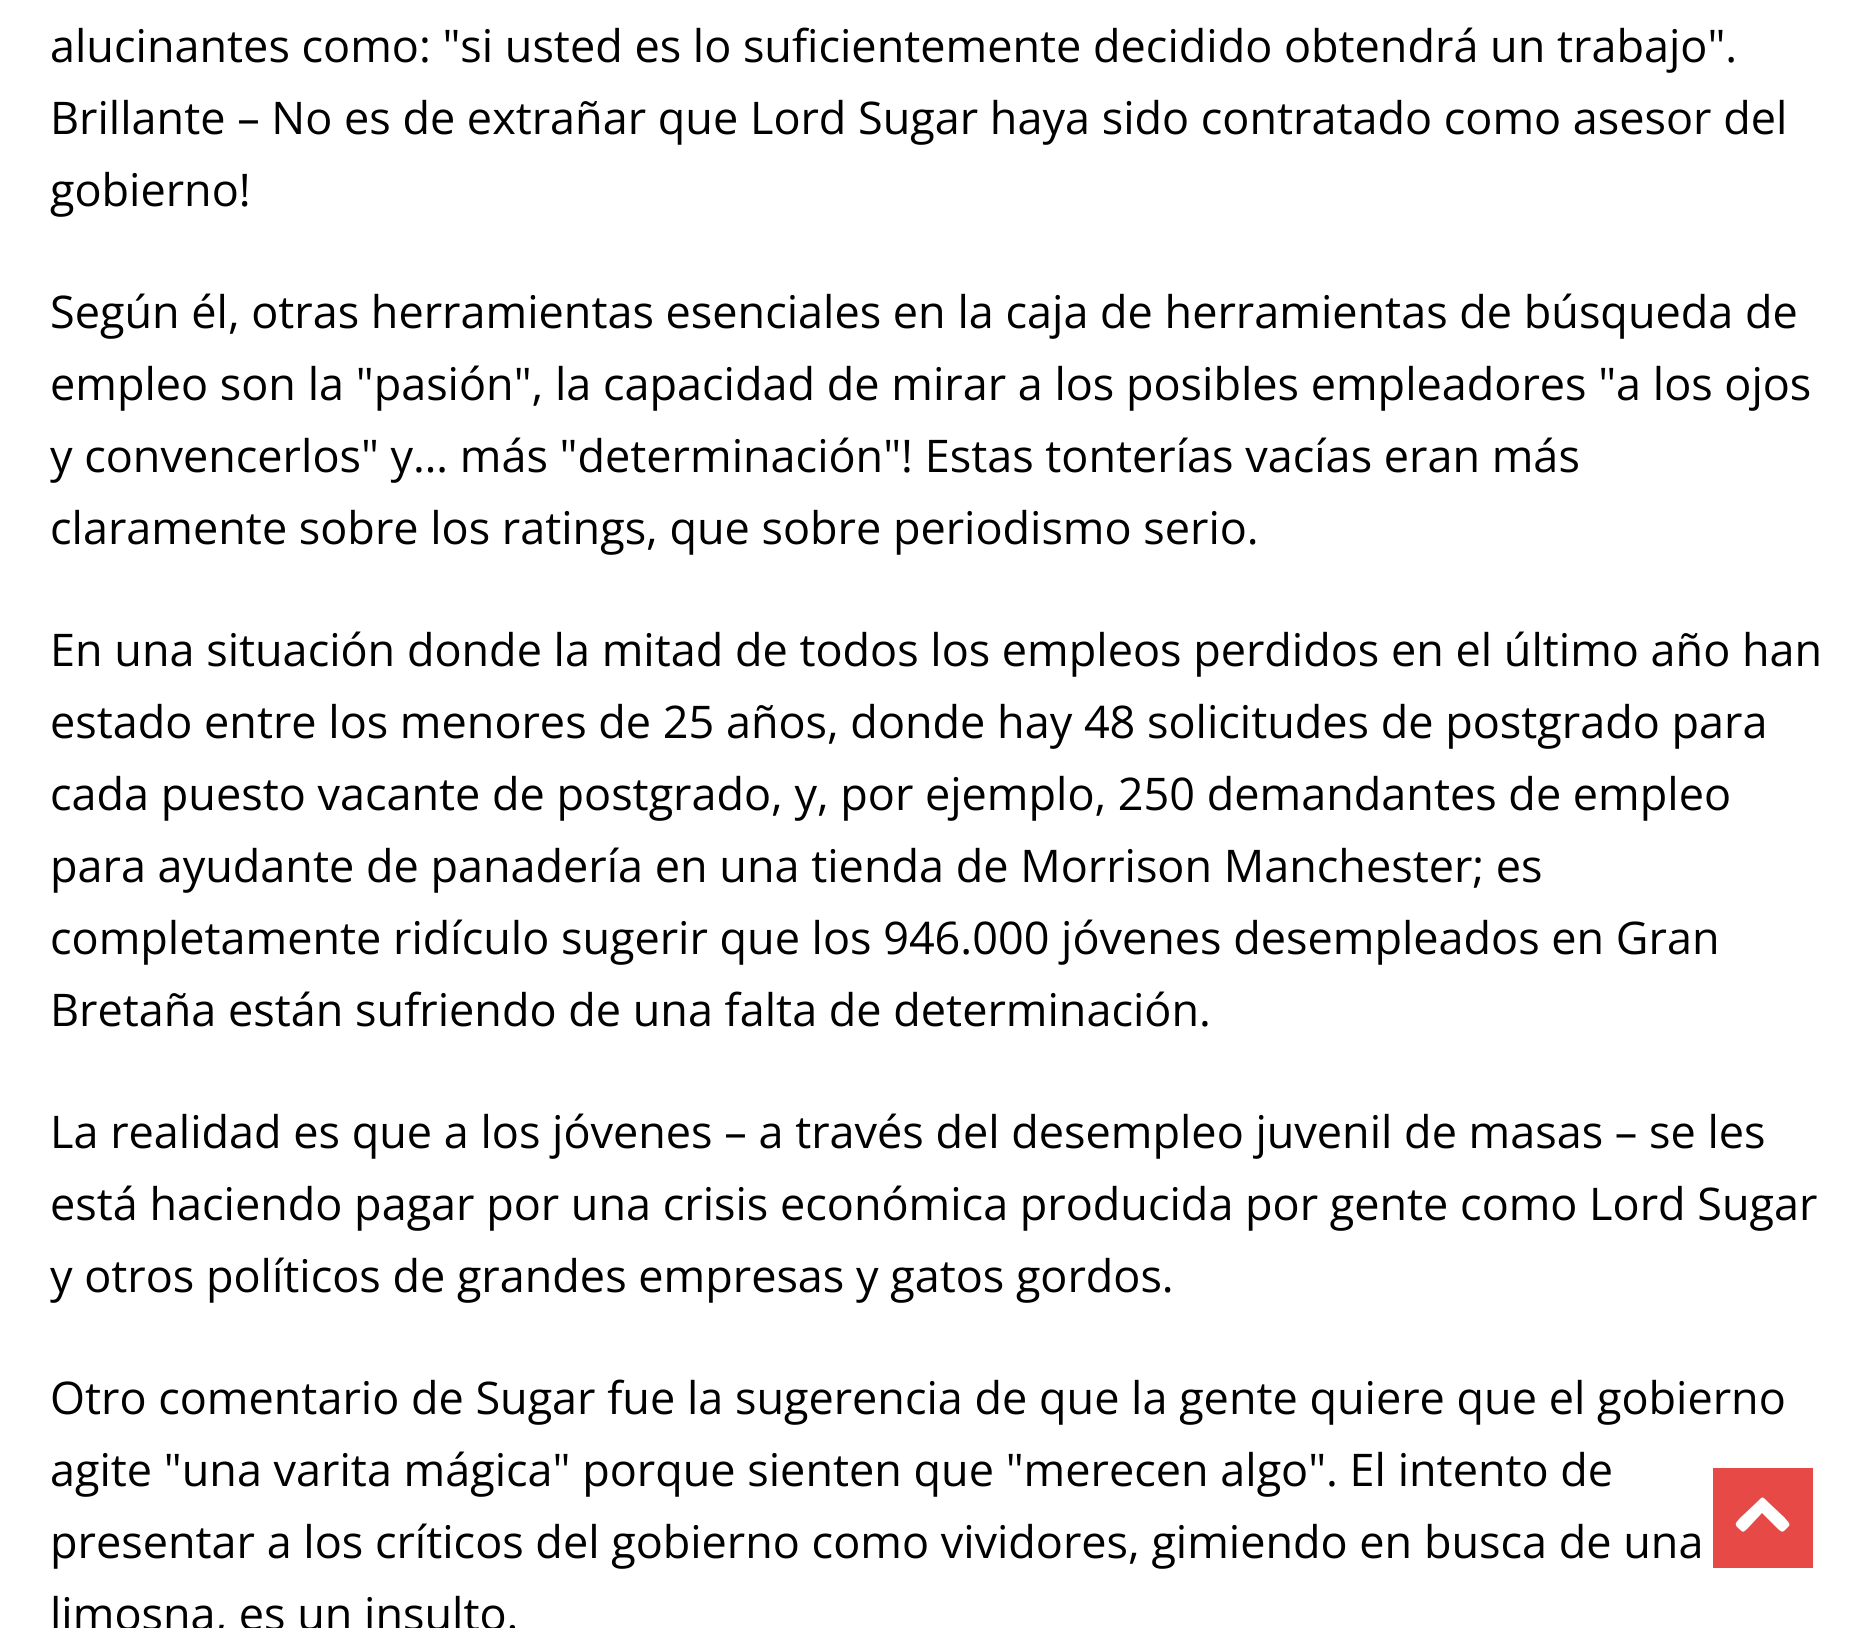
import math
import cairo



def draw(context):
    context.set_source_rgb(1, 1, 1)
    context.paint()
    context.set_source_rgb(230 / 255, 73 / 255, 70 / 255)
    context.rectangle(1713, 1468, 100, 100)
    context.fill()
    context.set_source_rgb(1, 1, 1)
    context.new_path()
    context.move_to(1789, 1526)
    context.curve_to(1783, 1532, 1783, 1534, 1777, 1528)
    context.line_to(1762, 1513)
    context.line_to(1748, 1528)
    context.curve_to(1742, 1534, 1743, 1532, 1737, 1527)
    context.curve_to(1734, 1523, 1737, 1522, 1740, 1518)
    context.line_to(1757, 1502)
    context.curve_to(1763, 1496, 1762, 1496, 1768, 1502)
    context.line_to(1785, 1518)
    context.curve_to(1785, 1519, 1791, 1523, 1789, 1526)
    context.close_path()
    context.fill()
    context.select_font_face("Open Sans")
    context.set_font_size(45)
    context.set_source_rgb(0, 0, 0)
    context.move_to(50, 62)
    context.show_text("alucinantes como: \"si usted es lo suficientemente decidido obtendrá un trabajo\".")
    context.move_to(50, 134)
    context.show_text("Brillante – No es de extrañar que Lord Sugar haya sido contratado como asesor del")
    context.move_to(50, 206)
    context.show_text("gobierno!")
    context.move_to(50, 328)
    context.show_text("Según él, otras herramientas esenciales en la caja de herramientas de búsqueda de")
    context.move_to(50, 400)
    context.show_text("empleo son la \"pasión\", la capacidad de mirar a los posibles empleadores \"a los ojos")
    context.move_to(50, 472)
    context.show_text("y convencerlos\" y… más \"determinación\"! Estas tonterías vacías eran más")
    context.move_to(50, 544)
    context.show_text("claramente sobre los ratings, que sobre periodismo serio.")
    context.move_to(50, 666)
    context.show_text("En una situación donde la mitad de todos los empleos perdidos en el último año han")
    context.move_to(50, 738)
    context.show_text("estado entre los menores de 25 años, donde hay 48 solicitudes de postgrado para")
    context.move_to(50, 810)
    context.show_text("cada puesto vacante de postgrado, y, por ejemplo, 250 demandantes de empleo")
    context.move_to(50, 882)
    context.show_text("para ayudante de panadería en una tienda de Morrison Manchester; es")
    context.move_to(50, 954)
    context.show_text("completamente ridículo sugerir que los 946.000 jóvenes desempleados en Gran")
    context.move_to(50, 1026)
    context.show_text("Bretaña están sufriendo de una falta de determinación.")
    context.move_to(50, 1148)
    context.show_text("La realidad es que a los jóvenes – a través del desempleo juvenil de masas – se les")
    context.move_to(50, 1220)
    context.show_text("está haciendo pagar por una crisis económica producida por gente como Lord Sugar")
    context.move_to(50, 1292)
    context.show_text("y otros políticos de grandes empresas y gatos gordos.")
    context.move_to(50, 1414)
    context.show_text("Otro comentario de Sugar fue la sugerencia de que la gente quiere que el gobierno")
    context.move_to(50, 1486)
    context.show_text("agite \"una varita mágica\" porque sienten que \"merecen algo\". El intento de")
    context.move_to(50, 1558)
    context.show_text("presentar a los críticos del gobierno como vividores, gimiendo en busca de una")
    context.move_to(50, 1630)
    context.show_text("limosna, es un insulto.")


surface = cairo.ImageSurface(cairo.Format.RGB24, 1874, 1628)
context = cairo.Context(surface)
options = cairo.FontOptions()
options.set_hint_metrics(cairo.HintMetrics.OFF)
options.set_hint_style(cairo.HintStyle.NONE)
context.set_font_options(options)
context.set_miter_limit(4)
draw(context)
surface.write_to_png("out.png")
